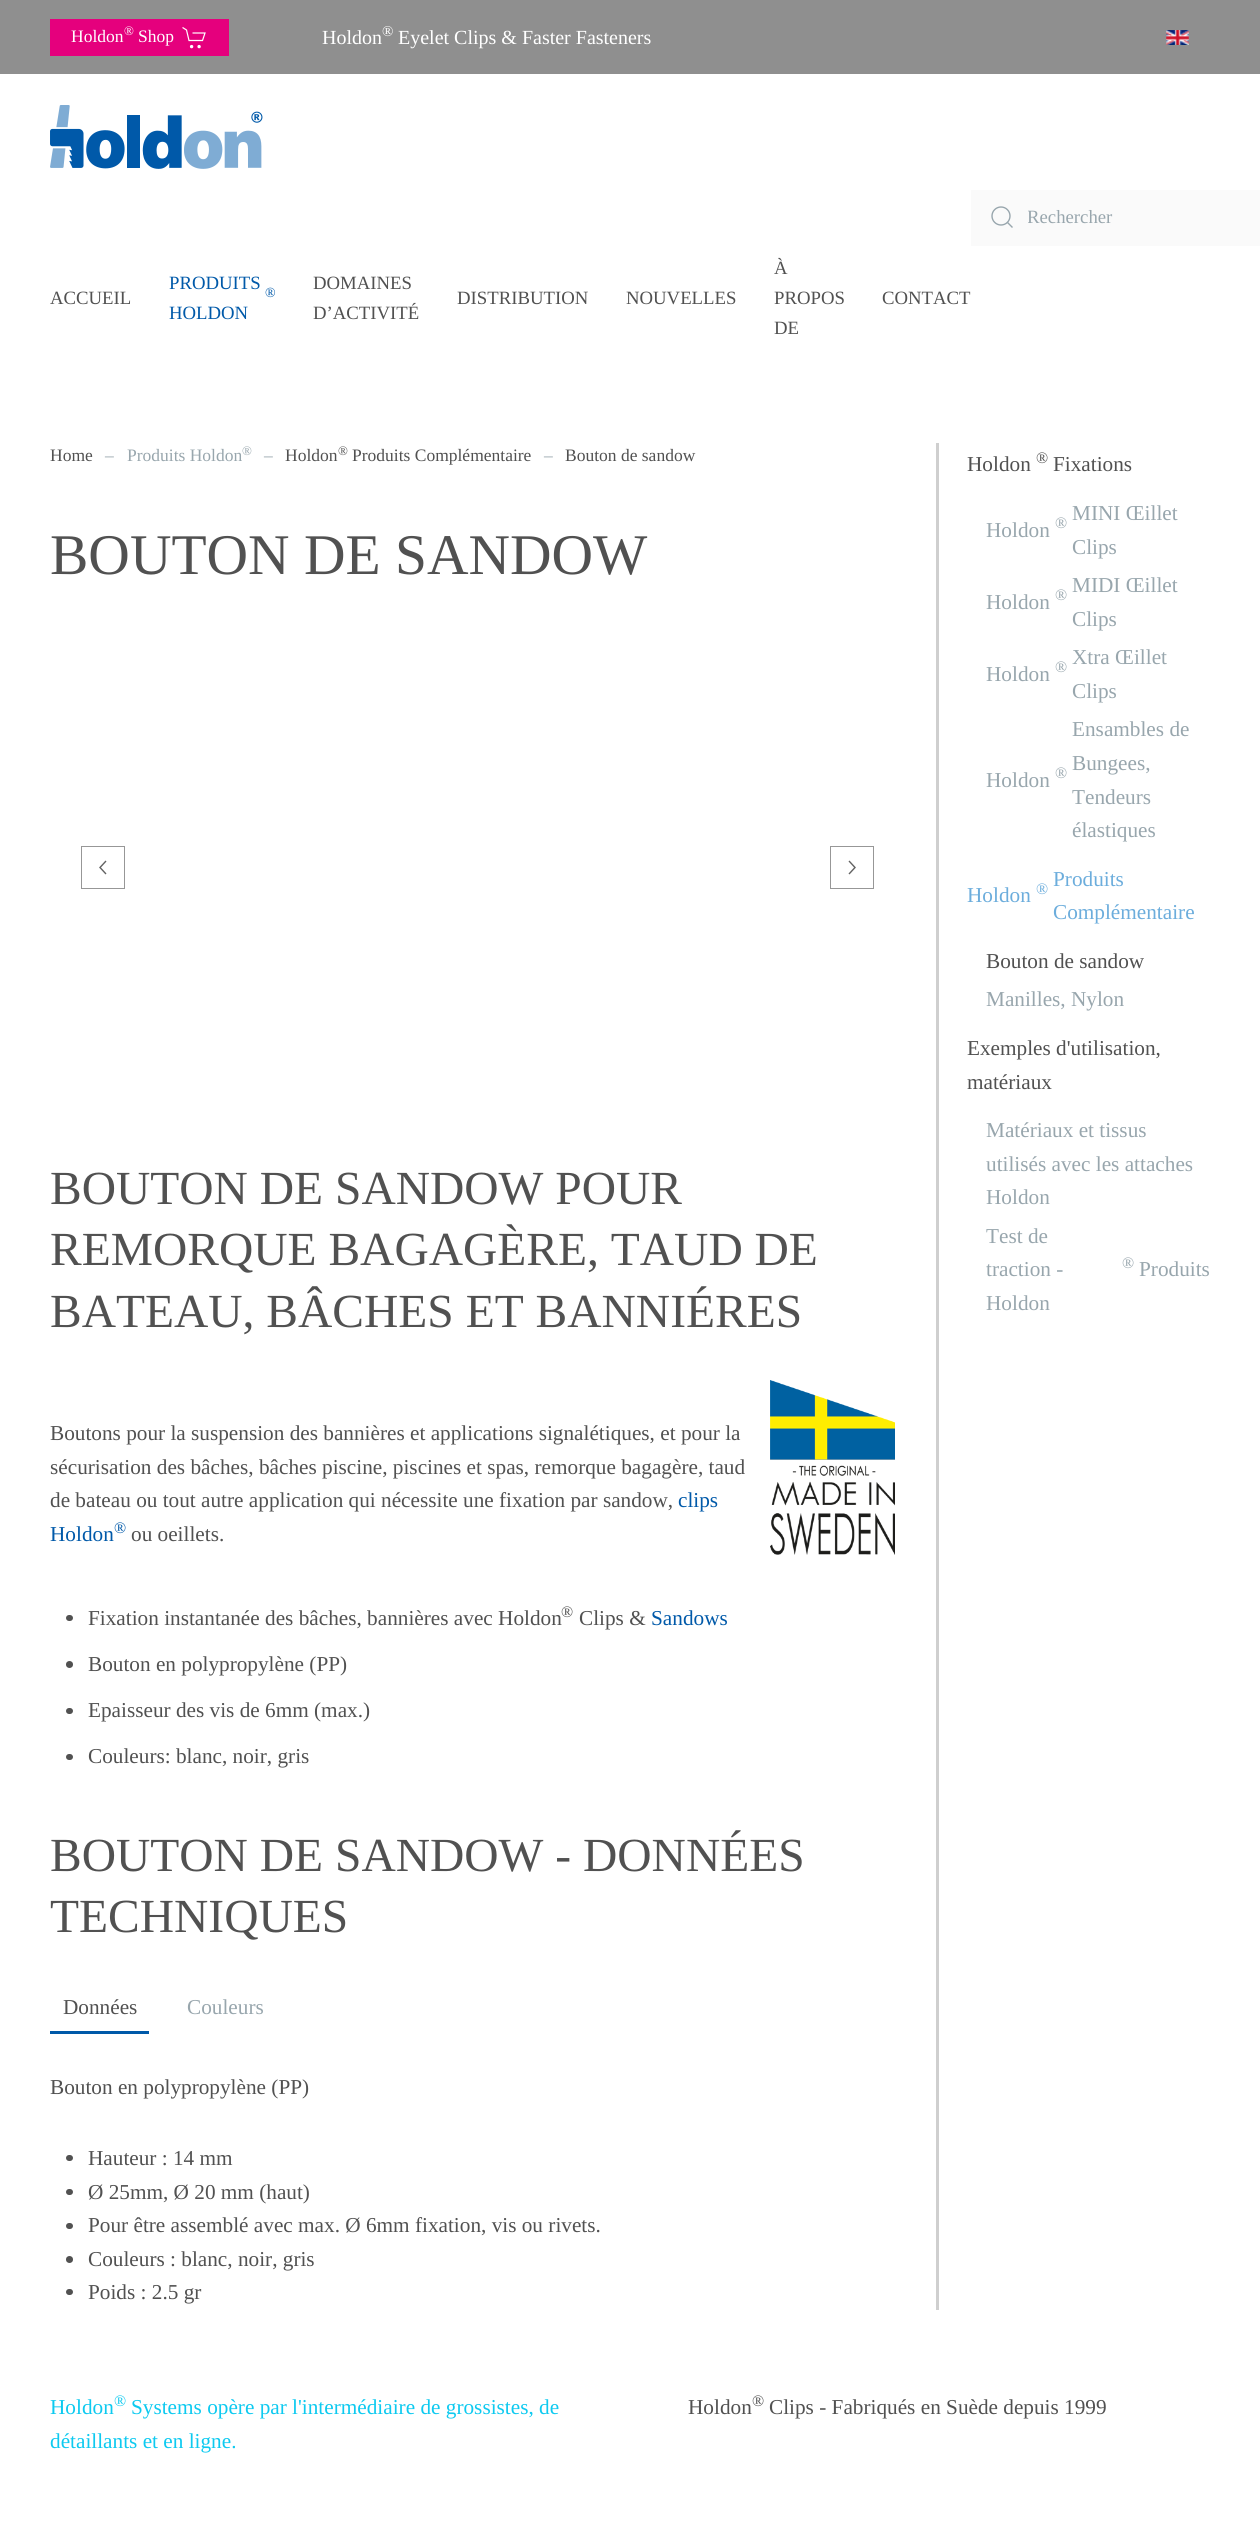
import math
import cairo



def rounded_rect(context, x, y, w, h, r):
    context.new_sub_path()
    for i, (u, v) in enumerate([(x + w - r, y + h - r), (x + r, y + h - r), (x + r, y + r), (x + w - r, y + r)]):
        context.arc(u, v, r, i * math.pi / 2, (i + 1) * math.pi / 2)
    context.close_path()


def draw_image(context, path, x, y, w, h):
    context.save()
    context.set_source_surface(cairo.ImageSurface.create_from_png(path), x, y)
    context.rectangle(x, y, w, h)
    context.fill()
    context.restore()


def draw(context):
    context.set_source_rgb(1, 1, 1)
    context.paint()
    context.set_source_rgb(143 / 255, 143 / 255, 143 / 255)
    context.rectangle(0, 0, 1260, 74)
    context.fill()
    context.set_source_rgb(229 / 255, 0, 125 / 255)
    context.rectangle(50, 19, 179, 37)
    context.fill()
    context.new_path()
    context.move_to(182.5, 27.5)
    context.line_to(186.5, 30)
    context.line_to(189, 40.5)
    context.line_to(202.5, 40.5)
    context.line_to(205, 33)
    context.line_to(192.5, 33)
    context.set_source_rgb(1, 1, 1)
    context.set_line_width(1.2)
    context.stroke()
    context.arc(191.6, 46.6, 1.7, 0, 2 * math.pi)
    context.fill()
    context.arc(199.1, 46.6, 1.7, 0, 2 * math.pi)
    context.fill()
    draw_image(context, "images/1.png", 1166, 30, 23, 15)
    context.set_source_rgb(250 / 255, 250 / 255, 250 / 255)
    context.rectangle(971, 190, 289, 56)
    context.fill()
    context.arc(1001, 216, 9, 0, 2 * math.pi)
    context.set_source_rgb(152 / 255, 166 / 255, 173 / 255)
    context.set_line_width(1.4)
    context.stroke()
    context.new_path()
    context.move_to(1007.5, 222.5)
    context.line_to(1012.5, 227.5)
    context.close_path()
    context.stroke()
    draw_image(context, "images/2.png", 50, 105, 213, 64)
    context.rectangle(81.5, 846.5, 43, 42)
    context.set_source_rgb(151 / 255, 151 / 255, 151 / 255)
    context.set_line_width(1)
    context.stroke()
    context.new_path()
    context.move_to(106, 861)
    context.line_to(100, 867.5)
    context.line_to(106, 874)
    context.set_source_rgb(98 / 255, 98 / 255, 98 / 255)
    context.set_line_width(1.4)
    context.stroke()
    context.rectangle(830.5, 846.5, 43, 42)
    context.set_source_rgb(151 / 255, 151 / 255, 151 / 255)
    context.set_line_width(1)
    context.stroke()
    context.new_path()
    context.move_to(849, 874)
    context.line_to(855, 867.5)
    context.line_to(849, 861)
    context.set_source_rgb(98 / 255, 98 / 255, 98 / 255)
    context.set_line_width(1.4)
    context.stroke()
    draw_image(context, "images/3.png", 770, 1380, 125, 175)
    context.set_source_rgb(81 / 255, 81 / 255, 81 / 255)
    rounded_rect(context, 66, 1615, 7, 6, 3)
    context.fill()
    context.arc(69.5, 1664.5, 3.5, 0, 2 * math.pi)
    context.fill()
    rounded_rect(context, 66, 1708, 7, 6, 3)
    context.fill()
    rounded_rect(context, 66, 1754, 7, 6, 3)
    context.fill()
    context.set_source_rgb(0, 89 / 255, 169 / 255)
    context.rectangle(50, 2031, 99, 3)
    context.fill()
    context.set_source_rgb(81 / 255, 81 / 255, 81 / 255)
    rounded_rect(context, 66, 2155, 7, 6, 3)
    context.fill()
    rounded_rect(context, 66, 2189, 7, 6, 3)
    context.fill()
    rounded_rect(context, 66, 2223, 7, 6, 3)
    context.fill()
    context.arc(69.5, 2259.5, 3.5, 0, 2 * math.pi)
    context.fill()
    rounded_rect(context, 66, 2289, 7, 6, 3)
    context.fill()
    context.set_source_rgb(207 / 255, 207 / 255, 207 / 255)
    context.rectangle(936, 443, 3, 1867)
    context.fill()
    context.select_font_face("Liberation Serif")
    context.set_font_size(17.5)
    context.set_source_rgb(1, 1, 1)
    context.move_to(71, 42)
    context.show_text("Holdon")
    context.set_font_size(13)
    context.move_to(124, 35)
    context.show_text("®")
    context.set_font_size(17.5)
    context.move_to(138, 42)
    context.show_text("Shop")
    context.set_font_size(20)
    context.move_to(322, 44)
    context.show_text("Holdon")
    context.set_font_size(15)
    context.move_to(382, 36)
    context.show_text("®")
    context.set_font_size(20)
    context.move_to(398, 44)
    context.show_text("Eyelet Clips & Faster Fasteners")
    context.save()
    context.rectangle(1028, 208, 220, 21)
    context.clip()
    context.set_font_size(18.75)
    context.set_source_rgb(152 / 255, 166 / 255, 173 / 255)
    context.move_to(1027, 223)
    context.show_text("Rechercher")
    context.restore()
    context.set_font_size(18.75)
    context.set_source_rgb(81 / 255, 81 / 255, 81 / 255)
    context.move_to(50, 304)
    context.show_text("ACCUEIL")
    context.set_source_rgb(0, 89 / 255, 169 / 255)
    context.move_to(169, 289)
    context.show_text("PRODUITS")
    context.set_font_size(14)
    context.move_to(265, 297)
    context.show_text("®")
    context.set_font_size(18.75)
    context.move_to(169, 319)
    context.show_text("HOLDON")
    context.set_source_rgb(81 / 255, 81 / 255, 81 / 255)
    context.move_to(313, 289)
    context.show_text("DOMAINES")
    context.move_to(313, 319)
    context.show_text("D’ACTIVITÉ")
    context.move_to(457, 304)
    context.show_text("DISTRIBUTION")
    context.move_to(626, 304)
    context.show_text("NOUVELLES")
    context.move_to(774, 274)
    context.show_text("À")
    context.move_to(774, 304)
    context.show_text("PROPOS")
    context.move_to(774, 334)
    context.show_text("DE")
    context.move_to(882, 304)
    context.show_text("CONTACT")
    context.set_font_size(17.5)
    context.move_to(50, 461)
    context.show_text("Home")
    context.set_source_rgb(152 / 255, 166 / 255, 173 / 255)
    context.move_to(105, 461)
    context.show_text("–")
    context.move_to(127, 461)
    context.show_text("Produits Holdon")
    context.set_font_size(13)
    context.move_to(242, 455)
    context.show_text("®")
    context.set_font_size(17.5)
    context.move_to(264, 461)
    context.show_text("–")
    context.set_source_rgb(81 / 255, 81 / 255, 81 / 255)
    context.move_to(285, 461)
    context.show_text("Holdon")
    context.set_font_size(13)
    context.move_to(338, 455)
    context.show_text("®")
    context.set_font_size(17.5)
    context.move_to(352, 461)
    context.show_text("Produits Complémentaire")
    context.set_source_rgb(152 / 255, 166 / 255, 173 / 255)
    context.move_to(544, 461)
    context.show_text("–")
    context.set_source_rgb(81 / 255, 81 / 255, 81 / 255)
    context.move_to(565, 461)
    context.show_text("Bouton de sandow")
    context.set_font_size(57.5)
    context.move_to(50, 574)
    context.show_text("BOUTON DE SANDOW")
    context.set_font_size(47.5)
    context.move_to(50, 1204)
    context.show_text("BOUTON DE SANDOW POUR")
    context.move_to(50, 1265)
    context.show_text("REMORQUE BAGAGÈRE, TAUD DE")
    context.move_to(50, 1327)
    context.show_text("BATEAU, BÂCHES ET BANNIÉRES")
    context.set_font_size(21.25)
    context.move_to(50, 1440)
    context.show_text("Boutons pour la suspension des bannières et applications signalétiques, et pour la")
    context.move_to(50, 1474)
    context.show_text("sécurisation des bâches, bâches piscine, piscines et spas, remorque bagagère, taud")
    context.move_to(50, 1507)
    context.show_text("de bateau ou tout autre application qui nécessite une fixation par sandow,")
    context.set_source_rgb(0, 89 / 255, 169 / 255)
    context.move_to(678, 1507)
    context.show_text("clips")
    context.move_to(50, 1541)
    context.show_text("Holdon")
    context.set_font_size(16)
    context.move_to(114, 1533)
    context.show_text("®")
    context.set_font_size(21.25)
    context.set_source_rgb(81 / 255, 81 / 255, 81 / 255)
    context.move_to(131, 1541)
    context.show_text("ou oeillets.")
    context.move_to(88, 1625)
    context.show_text("Fixation instantanée des bâches, bannières avec Holdon")
    context.set_font_size(16)
    context.move_to(561, 1617)
    context.show_text("®")
    context.set_font_size(21.25)
    context.move_to(579, 1625)
    context.show_text("Clips &")
    context.set_source_rgb(0, 89 / 255, 169 / 255)
    context.move_to(651, 1625)
    context.show_text("Sandows")
    context.set_source_rgb(81 / 255, 81 / 255, 81 / 255)
    context.move_to(88, 1671)
    context.show_text("Bouton en polypropylène (PP)")
    context.move_to(88, 1717)
    context.show_text("Epaisseur des vis de 6mm (max.)")
    context.move_to(88, 1763)
    context.show_text("Couleurs: blanc, noir, gris")
    context.set_font_size(47.5)
    context.move_to(50, 1871)
    context.show_text("BOUTON DE SANDOW - DONNÉES")
    context.move_to(50, 1932)
    context.show_text("TECHNIQUES")
    context.set_font_size(21.25)
    context.move_to(63, 2014)
    context.show_text("Données")
    context.set_source_rgb(152 / 255, 166 / 255, 173 / 255)
    context.move_to(187, 2014)
    context.show_text("Couleurs")
    context.set_source_rgb(81 / 255, 81 / 255, 81 / 255)
    context.move_to(50, 2094)
    context.show_text("Bouton en polypropylène (PP)")
    context.move_to(88, 2165)
    context.show_text("Hauteur : 14 mm")
    context.move_to(88, 2199)
    context.show_text("Ø 25mm, Ø 20 mm (haut)")
    context.move_to(88, 2232)
    context.show_text("Pour être assemblé avec max. Ø 6mm fixation, vis ou rivets.")
    context.move_to(88, 2266)
    context.show_text("Couleurs : blanc, noir, gris")
    context.move_to(88, 2299)
    context.show_text("Poids : 2.5 gr")
    context.move_to(967, 471)
    context.show_text("Holdon")
    context.set_font_size(16)
    context.move_to(1036, 463)
    context.show_text("®")
    context.set_font_size(21.25)
    context.move_to(1053, 471)
    context.show_text("Fixations")
    context.set_source_rgb(152 / 255, 166 / 255, 173 / 255)
    context.move_to(1072, 520)
    context.show_text("MINI Œillet")
    context.move_to(986, 537)
    context.show_text("Holdon")
    context.set_font_size(16)
    context.move_to(1055, 528)
    context.show_text("®")
    context.set_font_size(21.25)
    context.move_to(1072, 554)
    context.show_text("Clips")
    context.move_to(1072, 592)
    context.show_text("MIDI Œillet")
    context.move_to(986, 609)
    context.show_text("Holdon")
    context.set_font_size(16)
    context.move_to(1055, 600)
    context.show_text("®")
    context.set_font_size(21.25)
    context.move_to(1072, 626)
    context.show_text("Clips")
    context.move_to(1072, 664)
    context.show_text("Xtra Œillet")
    context.move_to(986, 681)
    context.show_text("Holdon")
    context.set_font_size(16)
    context.move_to(1055, 672)
    context.show_text("®")
    context.set_font_size(21.25)
    context.move_to(1072, 698)
    context.show_text("Clips")
    context.move_to(1072, 736)
    context.show_text("Ensambles de")
    context.move_to(986, 787)
    context.show_text("Holdon")
    context.set_font_size(16)
    context.move_to(1055, 778)
    context.show_text("®")
    context.set_font_size(21.25)
    context.move_to(1072, 770)
    context.show_text("Bungees,")
    context.move_to(1072, 804)
    context.show_text("Tendeurs")
    context.move_to(1072, 837)
    context.show_text("élastiques")
    context.set_source_rgb(108 / 255, 173 / 255, 220 / 255)
    context.move_to(1053, 886)
    context.show_text("Produits")
    context.move_to(967, 902)
    context.show_text("Holdon")
    context.set_font_size(16)
    context.move_to(1036, 894)
    context.show_text("®")
    context.set_font_size(21.25)
    context.move_to(1053, 919)
    context.show_text("Complémentaire")
    context.set_source_rgb(81 / 255, 81 / 255, 81 / 255)
    context.move_to(986, 968)
    context.show_text("Bouton de sandow")
    context.set_source_rgb(152 / 255, 166 / 255, 173 / 255)
    context.move_to(986, 1006)
    context.show_text("Manilles, Nylon")
    context.set_source_rgb(81 / 255, 81 / 255, 81 / 255)
    context.move_to(967, 1055)
    context.show_text("Exemples d'utilisation,")
    context.move_to(967, 1089)
    context.show_text("matériaux")
    context.set_source_rgb(152 / 255, 166 / 255, 173 / 255)
    context.move_to(986, 1137)
    context.show_text("Matériaux et tissus")
    context.move_to(986, 1171)
    context.show_text("utilisés avec les attaches")
    context.move_to(986, 1204)
    context.show_text("Holdon")
    context.move_to(986, 1243)
    context.show_text("Test de")
    context.move_to(986, 1276)
    context.show_text("traction -")
    context.set_font_size(16)
    context.move_to(1122, 1268)
    context.show_text("®")
    context.set_font_size(21.25)
    context.move_to(1139, 1276)
    context.show_text("Produits")
    context.move_to(986, 1310)
    context.show_text("Holdon")
    context.set_source_rgb(13 / 255, 202 / 255, 240 / 255)
    context.move_to(50, 2414)
    context.show_text("Holdon")
    context.set_font_size(16)
    context.move_to(114, 2406)
    context.show_text("®")
    context.set_font_size(21.25)
    context.move_to(131, 2414)
    context.show_text("Systems opère par l'intermédiaire de grossistes, de")
    context.move_to(50, 2448)
    context.show_text("détaillants et en ligne.")
    context.set_source_rgb(81 / 255, 81 / 255, 81 / 255)
    context.move_to(688, 2414)
    context.show_text("Holdon")
    context.set_font_size(16)
    context.move_to(752, 2406)
    context.show_text("®")
    context.set_font_size(21.25)
    context.move_to(769, 2414)
    context.show_text("Clips - Fabriqués en Suède depuis 1999")


surface = cairo.ImageSurface(cairo.Format.RGB24, 1260, 2531)
context = cairo.Context(surface)
options = cairo.FontOptions()
options.set_hint_metrics(cairo.HintMetrics.OFF)
options.set_hint_style(cairo.HintStyle.NONE)
context.set_font_options(options)
context.set_miter_limit(4)
draw(context)
surface.write_to_png("out.png")
